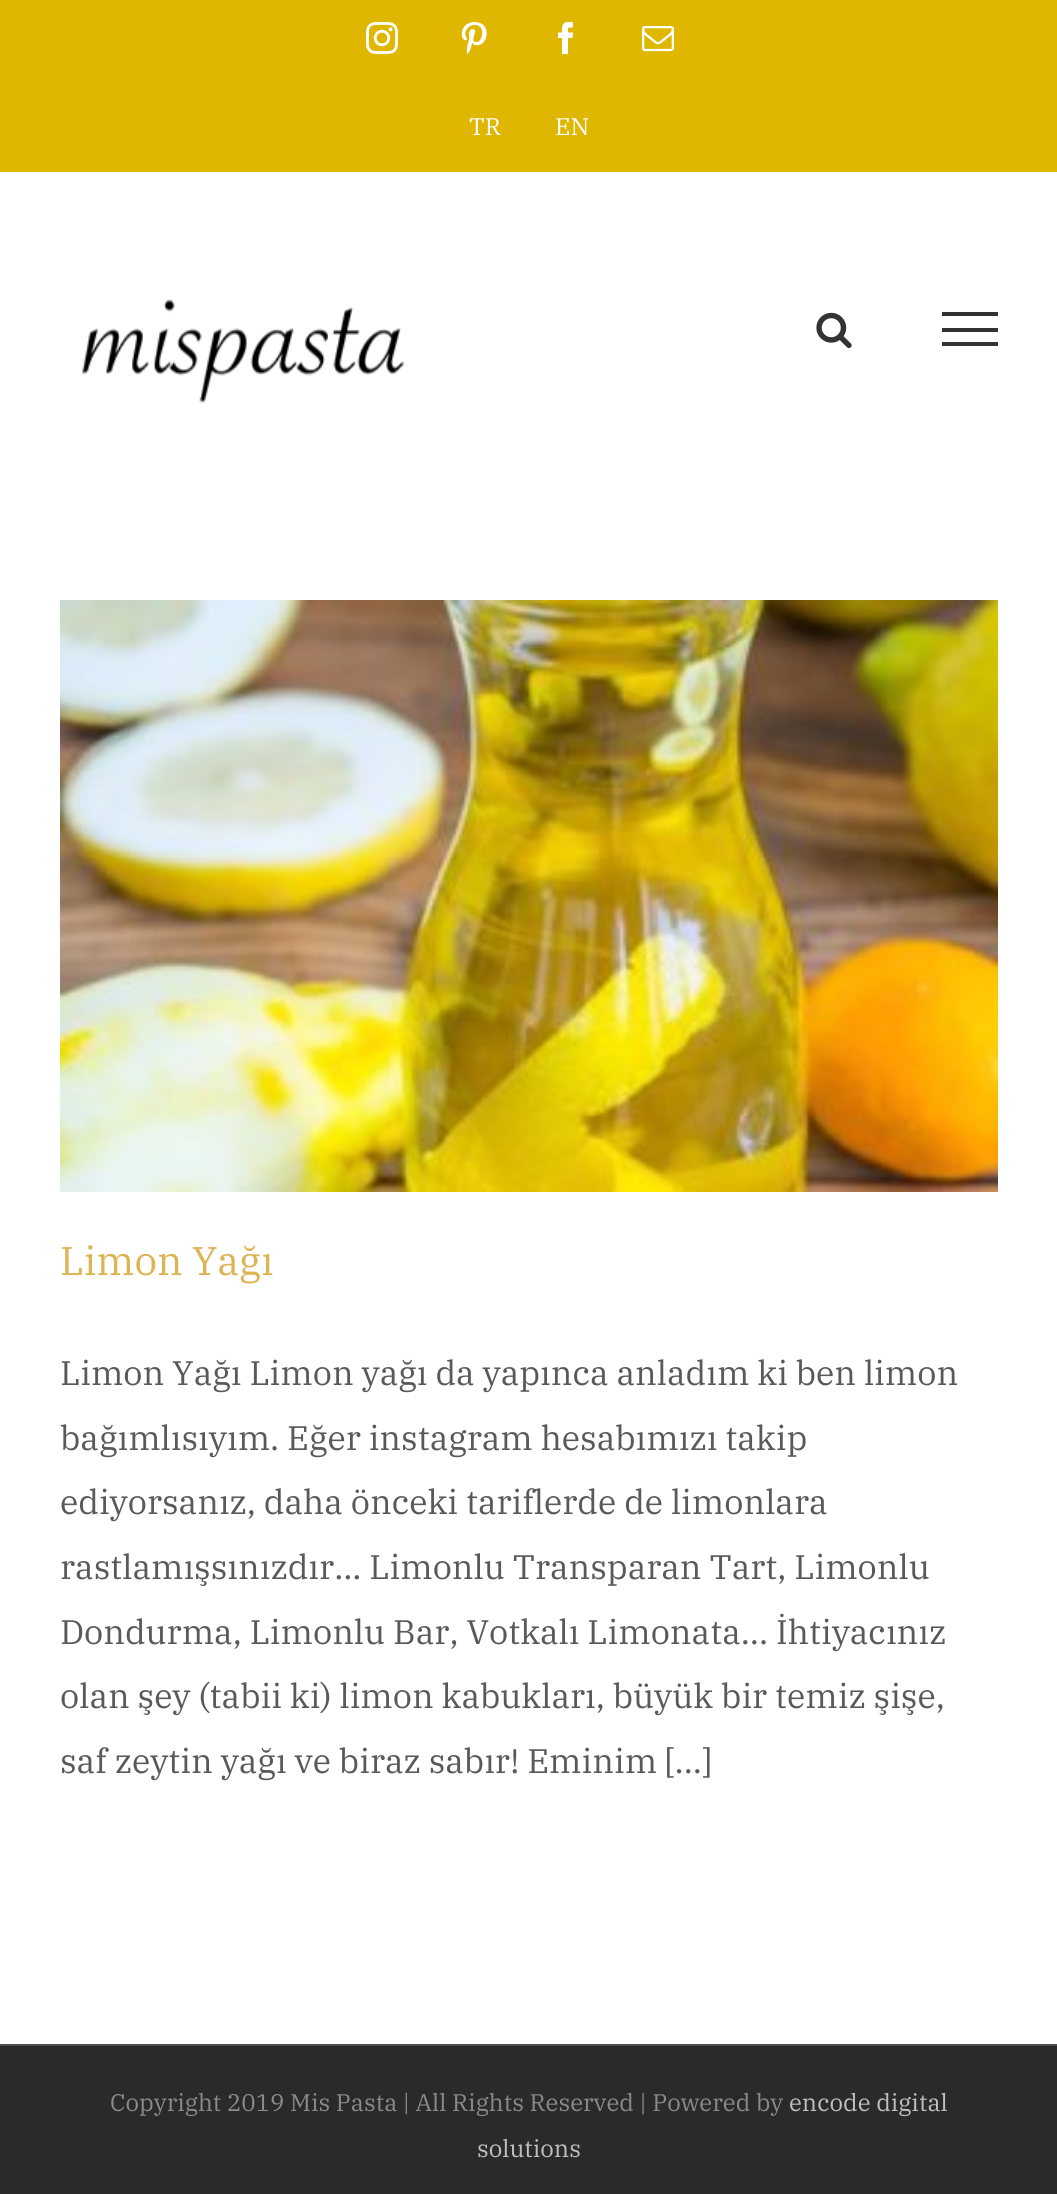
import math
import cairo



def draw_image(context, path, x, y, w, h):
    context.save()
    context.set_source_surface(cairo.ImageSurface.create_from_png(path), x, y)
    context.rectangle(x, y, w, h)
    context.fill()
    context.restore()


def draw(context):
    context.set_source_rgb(1, 1, 1)
    context.paint()
    context.set_source_rgb(224 / 255, 183 / 255, 0)
    context.rectangle(0, 0, 1057, 172)
    context.fill()
    draw_image(context, "images/1.png", 366, 22, 32, 32)
    draw_image(context, "images/2.png", 461, 22, 26, 32)
    draw_image(context, "images/3.png", 558, 22, 15, 32)
    draw_image(context, "images/4.png", 642, 26, 32, 26)
    draw_image(context, "images/5.png", 82, 299, 323, 104)
    draw_image(context, "images/6.png", 816, 312, 36, 37)
    context.set_source_rgb(51 / 255, 51 / 255, 51 / 255)
    context.rectangle(942, 312, 56, 4)
    context.fill()
    context.rectangle(942, 328, 56, 4)
    context.fill()
    context.rectangle(942, 342, 56, 4)
    context.fill()
    draw_image(context, "images/7.png", 60, 600, 938, 592)
    context.set_source_rgb(40 / 255, 42 / 255, 43 / 255)
    context.rectangle(0, 2046, 1057, 148)
    context.fill()
    context.set_source_rgb(75 / 255, 76 / 255, 77 / 255)
    context.rectangle(0, 2044, 1057, 2)
    context.fill()
    context.select_font_face("IBM Plex Serif")
    context.set_font_size(24)
    context.set_source_rgb(1, 1, 1)
    context.move_to(469, 135)
    context.show_text("TR")
    context.move_to(555, 135)
    context.show_text("EN")
    context.set_font_size(40)
    context.set_source_rgb(221 / 255, 180 / 255, 84 / 255)
    context.move_to(60, 1275)
    context.show_text("Limon Yağı")
    context.set_font_size(34)
    context.set_source_rgb(89 / 255, 89 / 255, 89 / 255)
    context.move_to(60, 1385)
    context.show_text("Limon Yağı Limon yağı da yapınca anladım ki ben limon")
    context.move_to(60, 1450)
    context.show_text("bağımlısıyım. Eğer instagram hesabımızı takip")
    context.move_to(60, 1514)
    context.show_text("ediyorsanız, daha önceki tariflerde de limonlara")
    context.move_to(60, 1579)
    context.show_text("rastlamışsınızdır... Limonlu Transparan Tart, Limonlu")
    context.move_to(60, 1644)
    context.show_text("Dondurma, Limonlu Bar, Votkalı Limonata... İhtiyacınız")
    context.move_to(60, 1708)
    context.show_text("olan şey (tabii ki) limon kabukları, büyük bir temiz şişe,")
    context.move_to(60, 1773)
    context.show_text("saf zeytin yağı ve biraz sabır! Eminim [...]")
    context.set_font_size(24)
    context.set_source_rgb(140 / 255, 137 / 255, 137 / 255)
    context.move_to(110, 2111)
    context.show_text("Copyright 2019 Mis Pasta | All Rights Reserved | Powered by")
    context.set_source_rgb(191 / 255, 191 / 255, 191 / 255)
    context.move_to(789, 2111)
    context.show_text("encode digital")
    context.move_to(477, 2157)
    context.show_text("solutions")


surface = cairo.ImageSurface(cairo.Format.RGB24, 1057, 2194)
context = cairo.Context(surface)
options = cairo.FontOptions()
options.set_hint_metrics(cairo.HintMetrics.OFF)
options.set_hint_style(cairo.HintStyle.NONE)
context.set_font_options(options)
context.set_miter_limit(4)
draw(context)
surface.write_to_png("out.png")
